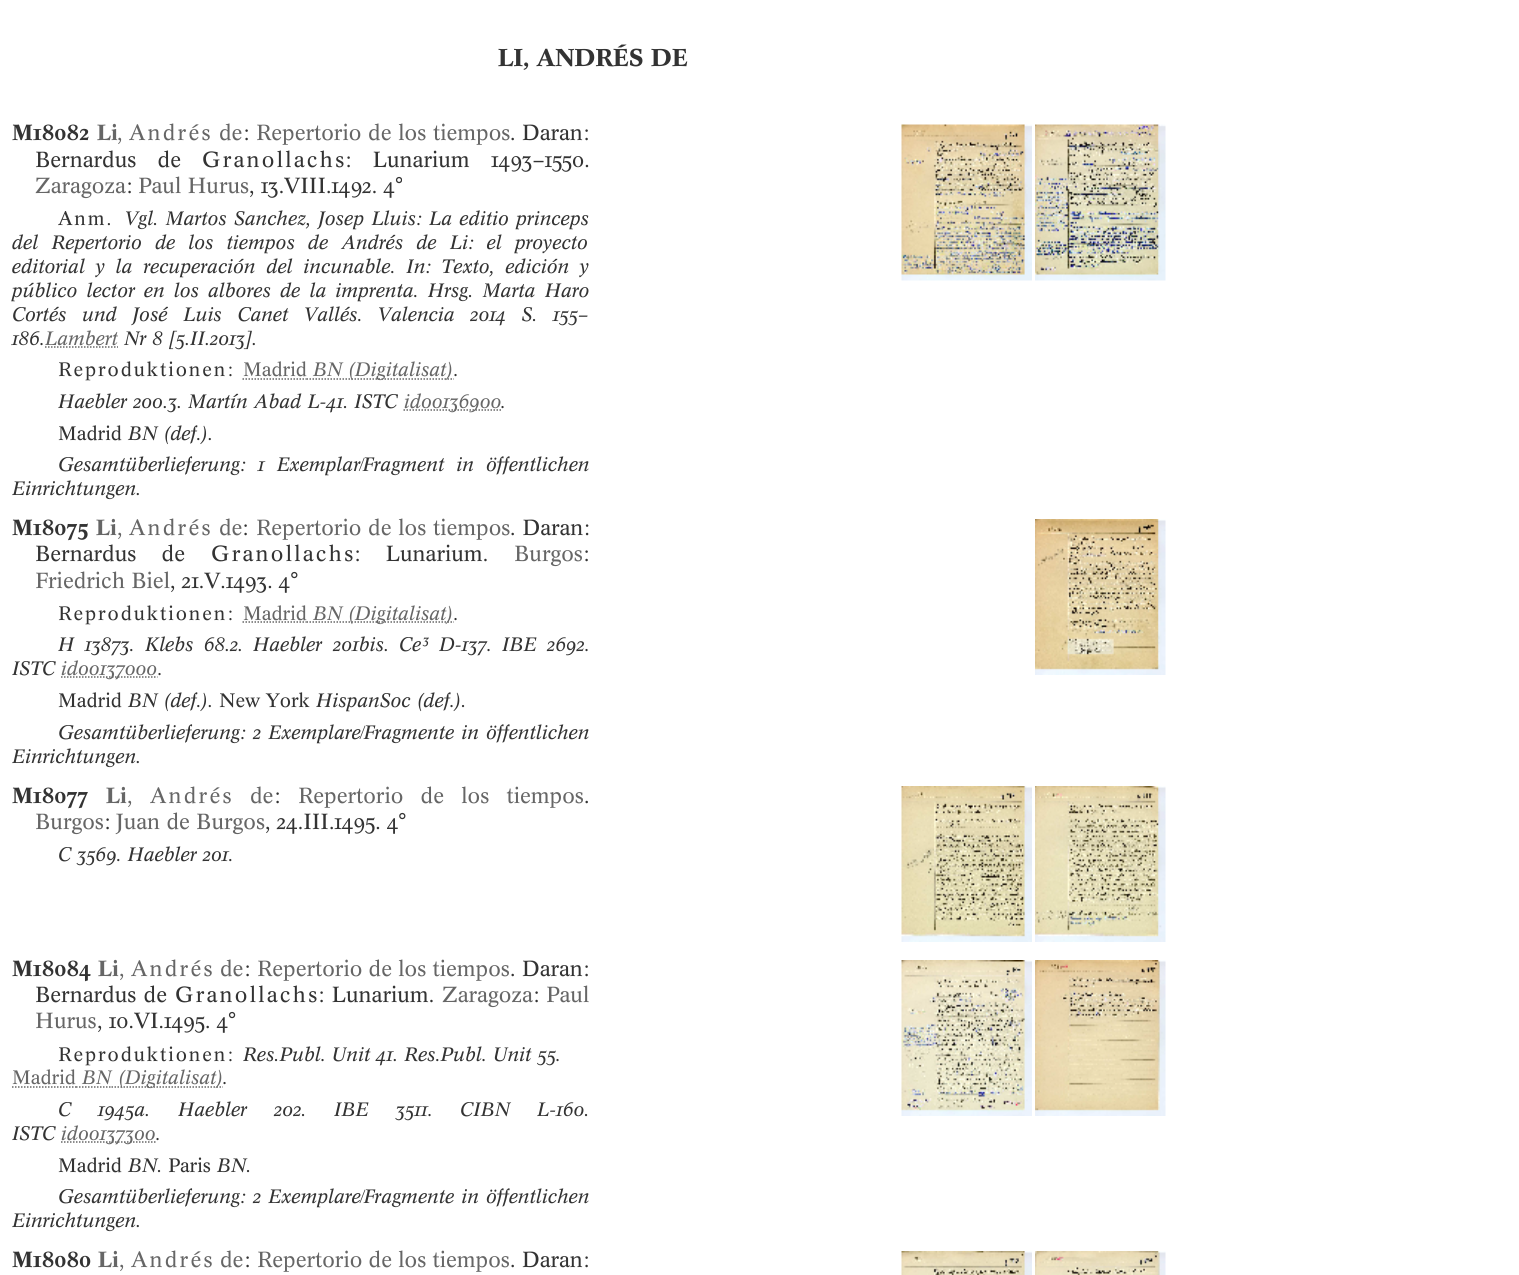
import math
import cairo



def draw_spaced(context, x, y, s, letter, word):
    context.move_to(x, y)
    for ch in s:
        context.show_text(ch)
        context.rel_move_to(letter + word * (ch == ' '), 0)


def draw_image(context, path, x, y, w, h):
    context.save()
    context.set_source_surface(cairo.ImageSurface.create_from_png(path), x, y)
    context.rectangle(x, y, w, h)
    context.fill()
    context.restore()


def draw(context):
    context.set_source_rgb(1, 1, 1)
    context.paint()
    context.new_path()
    context.move_to(45, 347)
    context.line_to(118, 347)
    context.set_source_rgb(102 / 255, 102 / 255, 102 / 255)
    context.set_line_width(1.5)
    context.set_dash([1.5, 1.5])
    context.stroke()
    context.new_path()
    context.move_to(242.5, 379)
    context.line_to(306.5, 379)
    context.stroke()
    context.new_path()
    context.move_to(306.5, 379)
    context.line_to(308, 379)
    context.move_to(309.5, 379)
    context.line_to(311, 379)
    context.set_dash([])
    context.stroke()
    context.new_path()
    context.move_to(312.5, 379)
    context.line_to(342.5, 379)
    context.set_dash([1.5, 1.5])
    context.stroke()
    context.new_path()
    context.move_to(342.5, 379)
    context.line_to(454, 379)
    context.stroke()
    context.new_path()
    context.move_to(403.5, 410)
    context.line_to(501, 410)
    context.stroke()
    draw_image(context, "images/1.png", 901, 124, 131, 157)
    draw_image(context, "images/2.png", 1035, 124, 131, 157)
    context.new_path()
    context.move_to(242.5, 622)
    context.line_to(306.5, 622)
    context.stroke()
    context.new_path()
    context.move_to(306.5, 622)
    context.line_to(308, 622)
    context.move_to(309.5, 622)
    context.line_to(311, 622)
    context.set_dash([])
    context.stroke()
    context.new_path()
    context.move_to(312.5, 622)
    context.line_to(342.5, 622)
    context.set_dash([1.5, 1.5])
    context.stroke()
    context.new_path()
    context.move_to(342.5, 622)
    context.line_to(454, 622)
    context.stroke()
    context.new_path()
    context.move_to(61, 677)
    context.line_to(157.5, 677)
    context.stroke()
    draw_image(context, "images/3.png", 1035, 519, 131, 156)
    draw_image(context, "images/4.png", 901, 786, 131, 156)
    draw_image(context, "images/5.png", 1035, 786, 131, 156)
    context.new_path()
    context.move_to(12, 1087)
    context.line_to(76, 1087)
    context.stroke()
    context.new_path()
    context.move_to(76, 1087)
    context.line_to(77.5, 1087)
    context.move_to(79, 1087)
    context.line_to(80.5, 1087)
    context.set_dash([])
    context.stroke()
    context.new_path()
    context.move_to(82, 1087)
    context.line_to(111.5, 1087)
    context.set_dash([1.5, 1.5])
    context.stroke()
    context.new_path()
    context.move_to(111.5, 1087)
    context.line_to(223, 1087)
    context.stroke()
    context.new_path()
    context.move_to(61, 1142)
    context.line_to(156, 1142)
    context.stroke()
    draw_image(context, "images/6.png", 901, 960, 131, 156)
    draw_image(context, "images/7.png", 1035, 960, 131, 156)
    draw_image(context, "images/8.png", 901, 1251, 131, 24)
    draw_image(context, "images/9.png", 1035, 1251, 131, 24)
    context.select_font_face("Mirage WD", cairo.FontSlant.NORMAL, cairo.FontWeight.BOLD)
    context.set_font_size(24)
    context.set_source_rgb(51 / 255, 51 / 255, 51 / 255)
    context.move_to(498, 66)
    context.show_text("LI, ANDRÉS DE")
    context.set_font_size(21.6)
    context.move_to(12, 140)
    context.show_text("M18082")
    context.set_source_rgb(102 / 255, 102 / 255, 102 / 255)
    context.move_to(97, 140)
    context.show_text("Li")
    context.select_font_face("Mirage WD")
    context.move_to(117, 140)
    context.show_text(",")
    draw_spaced(context, 129, 140, "Andrés", 2.25, 0)
    context.move_to(219, 140)
    context.show_text("de")
    context.set_source_rgb(51 / 255, 51 / 255, 51 / 255)
    context.move_to(243, 140)
    context.show_text(":")
    context.set_source_rgb(102 / 255, 102 / 255, 102 / 255)
    draw_spaced(context, 256, 140, "Repertorio de los tiempos", 0, 0.5)
    context.set_source_rgb(51 / 255, 51 / 255, 51 / 255)
    context.move_to(510, 140)
    context.show_text(". Daran:")
    draw_spaced(context, 35, 167, "Bernardus de", 0, 15)
    draw_spaced(context, 202, 167, "Granollachs", 2.25, 0)
    draw_spaced(context, 345, 167, ": Lunarium 1493–1550.", 0, 15)
    context.set_source_rgb(102 / 255, 102 / 255, 102 / 255)
    context.move_to(35, 193)
    context.show_text("Zaragoza")
    context.set_source_rgb(51 / 255, 51 / 255, 51 / 255)
    context.move_to(126, 193)
    context.show_text(":")
    context.set_source_rgb(102 / 255, 102 / 255, 102 / 255)
    context.move_to(138, 193)
    context.show_text("Paul Hurus")
    context.set_source_rgb(51 / 255, 51 / 255, 51 / 255)
    context.move_to(249, 193)
    context.show_text(", 13.VIII.1492. 4°")
    context.set_font_size(19.2)
    draw_spaced(context, 58, 225, "Anm.", 1.9, 0)
    context.select_font_face("Mirage WD", cairo.FontSlant.ITALIC)
    draw_spaced(context, 125, 225, "Vgl. Martos Sanchez, Josep Lluis: La editio princeps", 0, 1.25)
    draw_spaced(context, 12, 249, "del Repertorio de los tiempos de Andrés de Li: el proyecto", 0, 7)
    draw_spaced(context, 12, 273, "editorial y la recuperación del incunable. In: Texto, edición y", 0, 4.75)
    draw_spaced(context, 12, 297, "público lector en los albores de la imprenta. Hrsg. Marta Haro", 0, 3.1)
    draw_spaced(context, 12, 321, "Cortés und José Luis Canet Vallés. Valencia 2014 S. 155–", 0, 9.5)
    context.move_to(12, 345)
    context.show_text("186.")
    context.set_source_rgb(102 / 255, 102 / 255, 102 / 255)
    context.move_to(45, 345)
    context.show_text("Lambert")
    context.set_source_rgb(51 / 255, 51 / 255, 51 / 255)
    context.move_to(124, 345)
    context.show_text("Nr 8 [5.II.2013].")
    context.select_font_face("Mirage WD")
    draw_spaced(context, 58, 376, "Reproduktionen:", 1.9, 0)
    context.set_source_rgb(102 / 255, 102 / 255, 102 / 255)
    context.move_to(243, 376)
    context.show_text("Madrid")
    context.select_font_face("Mirage WD", cairo.FontSlant.ITALIC)
    context.move_to(313, 376)
    context.show_text("BN")
    context.move_to(348, 376)
    context.show_text("(Digitalisat)")
    context.set_source_rgb(51 / 255, 51 / 255, 51 / 255)
    context.move_to(454, 376)
    context.show_text(".")
    context.move_to(58, 408)
    context.show_text("Haebler 200.3. Martín Abad L-41. ISTC")
    context.set_source_rgb(102 / 255, 102 / 255, 102 / 255)
    context.move_to(404, 408)
    context.show_text("id00136900")
    context.set_source_rgb(51 / 255, 51 / 255, 51 / 255)
    context.move_to(501, 408)
    context.show_text(".")
    context.select_font_face("Mirage WD")
    context.move_to(58, 440)
    context.show_text("Madrid")
    context.select_font_face("Mirage WD", cairo.FontSlant.ITALIC)
    context.move_to(128, 440)
    context.show_text("BN (def.).")
    draw_spaced(context, 58, 471, "Gesamtüberlieferung: 1 Exemplar/Fragment in öffentlichen", 0, 6)
    context.move_to(12, 495)
    context.show_text("Einrichtungen.")
    context.select_font_face("Mirage WD", cairo.FontSlant.NORMAL, cairo.FontWeight.BOLD)
    context.set_font_size(21.6)
    context.move_to(12, 535)
    context.show_text("M18075")
    context.set_source_rgb(102 / 255, 102 / 255, 102 / 255)
    context.move_to(96, 535)
    context.show_text("Li")
    context.select_font_face("Mirage WD")
    context.move_to(117, 535)
    context.show_text(",")
    draw_spaced(context, 129, 535, "Andrés", 2.25, 0)
    context.move_to(219, 535)
    context.show_text("de")
    context.set_source_rgb(51 / 255, 51 / 255, 51 / 255)
    context.move_to(242, 535)
    context.show_text(":")
    context.set_source_rgb(102 / 255, 102 / 255, 102 / 255)
    draw_spaced(context, 256, 535, "Repertorio de los tiempos", 0, 0.5)
    context.set_source_rgb(51 / 255, 51 / 255, 51 / 255)
    draw_spaced(context, 510, 535, ". Daran:", 0, 0.5)
    draw_spaced(context, 35, 561, "Bernardus de", 0, 19)
    draw_spaced(context, 211, 561, "Granollachs", 2.25, 0)
    draw_spaced(context, 354, 561, ": Lunarium.", 0, 19)
    context.set_source_rgb(102 / 255, 102 / 255, 102 / 255)
    context.move_to(514, 561)
    context.show_text("Burgos")
    context.set_source_rgb(51 / 255, 51 / 255, 51 / 255)
    context.move_to(583, 561)
    context.show_text(":")
    context.set_source_rgb(102 / 255, 102 / 255, 102 / 255)
    context.move_to(35, 588)
    context.show_text("Friedrich Biel")
    context.set_source_rgb(51 / 255, 51 / 255, 51 / 255)
    context.move_to(170, 588)
    context.show_text(", 21.V.1493. 4°")
    context.set_font_size(19.2)
    draw_spaced(context, 58, 620, "Reproduktionen:", 1.9, 0)
    context.set_source_rgb(102 / 255, 102 / 255, 102 / 255)
    context.move_to(243, 620)
    context.show_text("Madrid")
    context.select_font_face("Mirage WD", cairo.FontSlant.ITALIC)
    context.move_to(313, 620)
    context.show_text("BN")
    context.move_to(348, 620)
    context.show_text("(Digitalisat)")
    context.set_source_rgb(51 / 255, 51 / 255, 51 / 255)
    context.move_to(454, 620)
    context.show_text(".")
    context.move_to(58, 651)
    context.show_text("H")
    context.move_to(85, 651)
    context.show_text("13873.")
    context.move_to(145, 651)
    context.show_text("Klebs")
    context.move_to(204, 651)
    context.show_text("68.2.")
    context.move_to(253, 651)
    context.show_text("Haebler")
    context.move_to(333, 651)
    context.show_text("201bis.")
    context.move_to(399, 651)
    context.show_text("Ce³")
    context.move_to(439, 651)
    context.show_text("D-137.")
    context.move_to(502, 651)
    context.show_text("IBE")
    context.move_to(547, 651)
    context.show_text("2692.")
    context.move_to(12, 675)
    context.show_text("ISTC")
    context.set_source_rgb(102 / 255, 102 / 255, 102 / 255)
    context.move_to(61, 675)
    context.show_text("id00137000")
    context.set_source_rgb(51 / 255, 51 / 255, 51 / 255)
    context.move_to(158, 675)
    context.show_text(".")
    context.select_font_face("Mirage WD")
    context.move_to(58, 707)
    context.show_text("Madrid")
    context.select_font_face("Mirage WD", cairo.FontSlant.ITALIC)
    context.move_to(128, 707)
    context.show_text("BN (def.).")
    context.select_font_face("Mirage WD")
    context.move_to(219, 707)
    context.show_text("New York")
    context.select_font_face("Mirage WD", cairo.FontSlant.ITALIC)
    context.move_to(316, 707)
    context.show_text("HispanSoc (def.).")
    draw_spaced(context, 58, 739, "Gesamtüberlieferung: 2 Exemplare/Fragmente in öffentlichen", 0, 1)
    context.move_to(12, 763)
    context.show_text("Einrichtungen.")
    context.select_font_face("Mirage WD", cairo.FontSlant.NORMAL, cairo.FontWeight.BOLD)
    context.set_font_size(21.6)
    context.move_to(12, 803)
    context.show_text("M18077")
    context.set_source_rgb(102 / 255, 102 / 255, 102 / 255)
    context.move_to(106, 803)
    context.show_text("Li")
    context.select_font_face("Mirage WD")
    context.move_to(127, 803)
    context.show_text(",")
    draw_spaced(context, 150, 803, "Andrés", 2.25, 0)
    context.move_to(250, 803)
    context.show_text("de")
    context.set_source_rgb(51 / 255, 51 / 255, 51 / 255)
    context.move_to(274, 803)
    context.show_text(":")
    context.set_source_rgb(102 / 255, 102 / 255, 102 / 255)
    draw_spaced(context, 298, 803, "Repertorio de los tiempos", 0, 11)
    context.set_source_rgb(51 / 255, 51 / 255, 51 / 255)
    context.move_to(584, 803)
    context.show_text(".")
    context.set_source_rgb(102 / 255, 102 / 255, 102 / 255)
    context.move_to(35, 829)
    context.show_text("Burgos")
    context.set_source_rgb(51 / 255, 51 / 255, 51 / 255)
    context.move_to(104, 829)
    context.show_text(":")
    context.set_source_rgb(102 / 255, 102 / 255, 102 / 255)
    context.move_to(116, 829)
    context.show_text("Juan de Burgos")
    context.set_source_rgb(51 / 255, 51 / 255, 51 / 255)
    context.move_to(265, 829)
    context.show_text(", 24.III.1495. 4°")
    context.select_font_face("Mirage WD", cairo.FontSlant.ITALIC)
    context.set_font_size(19.2)
    context.move_to(58, 861)
    context.show_text("C 3569. Haebler 201.")
    context.select_font_face("Mirage WD", cairo.FontSlant.NORMAL, cairo.FontWeight.BOLD)
    context.set_font_size(21.6)
    context.move_to(12, 976)
    context.show_text("M18084")
    context.set_source_rgb(102 / 255, 102 / 255, 102 / 255)
    context.move_to(98, 976)
    context.show_text("Li")
    context.select_font_face("Mirage WD")
    context.move_to(119, 976)
    context.show_text(",")
    draw_spaced(context, 131, 976, "Andrés", 2.25, 0)
    context.move_to(220, 976)
    context.show_text("de")
    context.set_source_rgb(51 / 255, 51 / 255, 51 / 255)
    context.move_to(244, 976)
    context.show_text(":")
    context.set_source_rgb(102 / 255, 102 / 255, 102 / 255)
    context.move_to(257, 976)
    context.show_text("Repertorio de los tiempos")
    context.set_source_rgb(51 / 255, 51 / 255, 51 / 255)
    context.move_to(510, 976)
    context.show_text(". Daran:")
    draw_spaced(context, 35, 1002, "Bernardus de", 0, 1)
    draw_spaced(context, 175, 1002, "Granollachs", 2.25, 0)
    draw_spaced(context, 318, 1002, ": Lunarium.", 0, 1)
    context.set_source_rgb(102 / 255, 102 / 255, 102 / 255)
    context.move_to(442, 1002)
    context.show_text("Zaragoza")
    context.set_source_rgb(51 / 255, 51 / 255, 51 / 255)
    context.move_to(533, 1002)
    context.show_text(":")
    context.set_source_rgb(102 / 255, 102 / 255, 102 / 255)
    context.move_to(546, 1002)
    context.show_text("Paul")
    context.move_to(35, 1028)
    context.show_text("Hurus")
    context.set_source_rgb(51 / 255, 51 / 255, 51 / 255)
    context.move_to(97, 1028)
    context.show_text(", 10.VI.1495. 4°")
    context.set_font_size(19.2)
    draw_spaced(context, 58, 1061, "Reproduktionen:", 1.9, 0)
    context.select_font_face("Mirage WD", cairo.FontSlant.ITALIC)
    context.move_to(243, 1061)
    context.show_text("Res.Publ. Unit 41. Res.Publ. Unit 55.")
    context.select_font_face("Mirage WD")
    context.set_source_rgb(102 / 255, 102 / 255, 102 / 255)
    context.move_to(12, 1084)
    context.show_text("Madrid")
    context.select_font_face("Mirage WD", cairo.FontSlant.ITALIC)
    context.move_to(82, 1084)
    context.show_text("BN")
    context.move_to(118, 1084)
    context.show_text("(Digitalisat)")
    context.set_source_rgb(51 / 255, 51 / 255, 51 / 255)
    context.move_to(223, 1084)
    context.show_text(".")
    context.move_to(58, 1116)
    context.show_text("C")
    context.move_to(98, 1116)
    context.show_text("1945a.")
    context.move_to(178, 1116)
    context.show_text("Haebler")
    context.move_to(274, 1116)
    context.show_text("202.")
    context.move_to(334, 1116)
    context.show_text("IBE")
    context.move_to(396, 1116)
    context.show_text("3511.")
    context.move_to(460, 1116)
    context.show_text("CIBN")
    context.move_to(537, 1116)
    context.show_text("L-160.")
    context.move_to(12, 1140)
    context.show_text("ISTC")
    context.set_source_rgb(102 / 255, 102 / 255, 102 / 255)
    context.move_to(61, 1140)
    context.show_text("id00137300")
    context.set_source_rgb(51 / 255, 51 / 255, 51 / 255)
    context.move_to(156, 1140)
    context.show_text(".")
    context.select_font_face("Mirage WD")
    context.move_to(58, 1172)
    context.show_text("Madrid")
    context.select_font_face("Mirage WD", cairo.FontSlant.ITALIC)
    context.move_to(128, 1172)
    context.show_text("BN.")
    context.select_font_face("Mirage WD")
    context.move_to(168, 1172)
    context.show_text("Paris")
    context.select_font_face("Mirage WD", cairo.FontSlant.ITALIC)
    context.move_to(217, 1172)
    context.show_text("BN.")
    draw_spaced(context, 58, 1203, "Gesamtüberlieferung: 2 Exemplare/Fragmente in öffentlichen", 0, 1)
    context.move_to(12, 1227)
    context.show_text("Einrichtungen.")
    context.select_font_face("Mirage WD", cairo.FontSlant.NORMAL, cairo.FontWeight.BOLD)
    context.set_font_size(21.6)
    context.move_to(12, 1267)
    context.show_text("M18080")
    context.set_source_rgb(102 / 255, 102 / 255, 102 / 255)
    context.move_to(98, 1267)
    context.show_text("Li")
    context.select_font_face("Mirage WD")
    context.move_to(119, 1267)
    context.show_text(",")
    draw_spaced(context, 131, 1267, "Andrés", 2.25, 0)
    context.move_to(220, 1267)
    context.show_text("de")
    context.set_source_rgb(51 / 255, 51 / 255, 51 / 255)
    context.move_to(244, 1267)
    context.show_text(":")
    context.set_source_rgb(102 / 255, 102 / 255, 102 / 255)
    context.move_to(257, 1267)
    context.show_text("Repertorio de los tiempos")
    context.set_source_rgb(51 / 255, 51 / 255, 51 / 255)
    context.move_to(510, 1267)
    context.show_text(". Daran:")


surface = cairo.ImageSurface(cairo.Format.RGB24, 1519, 1275)
context = cairo.Context(surface)
options = cairo.FontOptions()
options.set_hint_metrics(cairo.HintMetrics.OFF)
options.set_hint_style(cairo.HintStyle.NONE)
context.set_font_options(options)
context.set_miter_limit(4)
draw(context)
surface.write_to_png("out.png")
